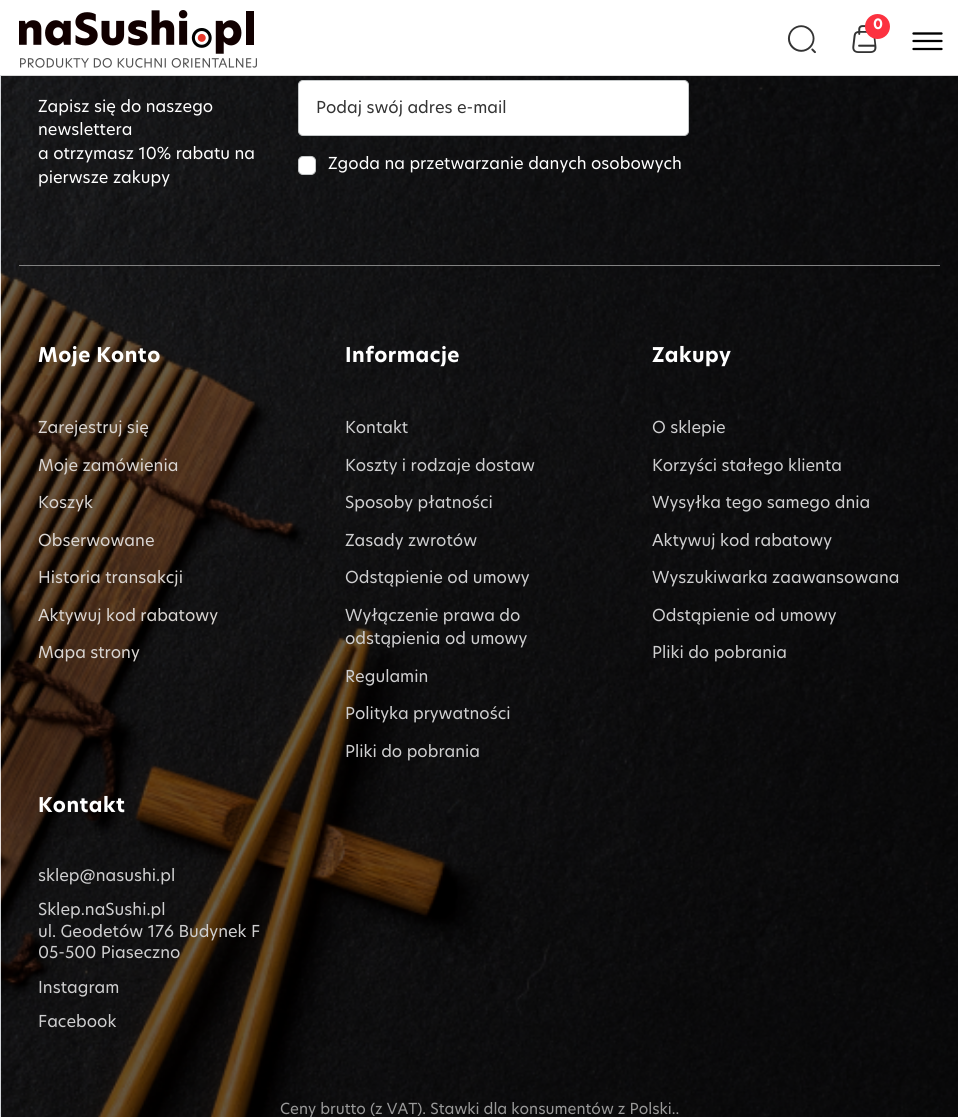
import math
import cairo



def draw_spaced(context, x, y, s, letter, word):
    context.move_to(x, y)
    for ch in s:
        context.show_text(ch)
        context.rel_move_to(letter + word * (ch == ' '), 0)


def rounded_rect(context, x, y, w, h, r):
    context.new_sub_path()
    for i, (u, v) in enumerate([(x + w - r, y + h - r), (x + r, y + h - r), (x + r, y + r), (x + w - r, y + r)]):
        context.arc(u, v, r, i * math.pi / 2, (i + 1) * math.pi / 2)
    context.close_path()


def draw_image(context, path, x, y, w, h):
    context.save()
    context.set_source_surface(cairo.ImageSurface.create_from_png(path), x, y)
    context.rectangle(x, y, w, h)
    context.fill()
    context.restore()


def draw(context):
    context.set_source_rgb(242 / 255, 246 / 255, 249 / 255)
    context.paint()
    context.set_source_rgb(1, 1, 1)
    context.rectangle(0, 0, 958, 75)
    context.fill()
    context.set_source_rgb(217 / 255, 217 / 255, 217 / 255)
    context.rectangle(0, 75, 958, 1)
    context.fill()
    draw_image(context, "images/1.png", 19, 10, 238, 58)
    draw_image(context, "images/2.png", 787, 25, 29, 29)
    draw_image(context, "images/3.png", 852, 25, 25, 28)
    context.set_source_rgb(252 / 255, 50 / 255, 64 / 255)
    context.arc(877.5, 26.5, 12.5, 0, 2 * math.pi)
    context.fill()
    context.new_path()
    context.move_to(913.5, 33.5)
    context.line_to(941.5, 33.5)
    context.move_to(913.5, 41)
    context.line_to(941.5, 41)
    context.move_to(913.5, 49)
    context.line_to(941.5, 49)
    context.set_source_rgb(0, 0, 0)
    context.set_line_width(2.3)
    context.set_line_cap(cairo.LineCap.ROUND)
    context.stroke()
    context.rectangle(1, 76, 957, 1041)
    context.fill()
    draw_image(context, "images/4.png", 0, 76, 958, 1041)
    context.set_source_rgb(130 / 255, 130 / 255, 130 / 255)
    context.rectangle(19, 265, 921, 1)
    context.fill()
    context.set_source_rgb(1, 1, 1)
    rounded_rect(context, 298.5, 80.5, 390, 55, 4.5)
    context.fill_preserve()
    context.set_source_rgb(196 / 255, 199 / 255, 200 / 255)
    context.set_line_width(1)
    context.set_line_cap(cairo.LineCap.BUTT)
    context.stroke()
    context.set_source_rgb(1, 1, 1)
    rounded_rect(context, 298.5, 156.5, 17, 18, 4.5)
    context.fill_preserve()
    context.set_source_rgb(196 / 255, 199 / 255, 200 / 255)
    context.stroke()
    context.select_font_face("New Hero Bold", cairo.FontSlant.NORMAL, cairo.FontWeight.BOLD)
    context.set_font_size(14)
    context.set_source_rgb(1, 1, 1)
    context.move_to(873, 29)
    context.show_text("0")
    context.select_font_face("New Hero")
    context.set_font_size(16.25)
    context.move_to(38, 112)
    context.show_text("Zapisz się do naszego")
    context.move_to(38, 135)
    context.show_text("newslettera")
    context.move_to(38, 159)
    context.show_text("a otrzymasz 10% rabatu na")
    context.move_to(38, 183)
    context.show_text("pierwsze zakupy")
    context.set_source_rgb(51 / 255, 51 / 255, 51 / 255)
    context.move_to(316, 113)
    context.show_text("Podaj swój adres e-mail")
    context.set_source_rgb(1, 1, 1)
    context.move_to(328, 169)
    context.show_text("Zgoda na przetwarzanie danych osobowych")
    context.select_font_face("New Hero Bold", cairo.FontSlant.NORMAL, cairo.FontWeight.BOLD)
    context.set_font_size(20)
    draw_spaced(context, 38, 362, "Moje Konto", 0.5, 0)
    context.select_font_face("New Hero")
    context.set_font_size(16.25)
    context.set_source_rgb(217 / 255, 213 / 255, 210 / 255)
    context.move_to(38, 433)
    context.show_text("Zarejestruj się")
    context.move_to(38, 471)
    context.show_text("Moje zamówienia")
    context.move_to(38, 508)
    context.show_text("Koszyk")
    context.move_to(38, 546)
    context.show_text("Obserwowane")
    context.move_to(38, 583)
    context.show_text("Historia transakcji")
    context.move_to(38, 621)
    context.show_text("Aktywuj kod rabatowy")
    context.move_to(38, 658)
    context.show_text("Mapa strony")
    context.select_font_face("New Hero Bold", cairo.FontSlant.NORMAL, cairo.FontWeight.BOLD)
    context.set_font_size(20)
    context.set_source_rgb(1, 1, 1)
    draw_spaced(context, 345, 362, "Informacje", 0.5, 0)
    context.select_font_face("New Hero")
    context.set_font_size(16.25)
    context.set_source_rgb(207 / 255, 207 / 255, 208 / 255)
    context.move_to(345, 433)
    context.show_text("Kontakt")
    context.move_to(345, 471)
    context.show_text("Koszty i rodzaje dostaw")
    context.move_to(345, 508)
    context.show_text("Sposoby płatności")
    context.move_to(345, 546)
    context.show_text("Zasady zwrotów")
    context.move_to(345, 583)
    context.show_text("Odstąpienie od umowy")
    context.move_to(345, 621)
    context.show_text("Wyłączenie prawa do")
    context.move_to(345, 644)
    context.show_text("odstąpienia od umowy")
    context.move_to(345, 682)
    context.show_text("Regulamin")
    context.move_to(345, 719)
    context.show_text("Polityka prywatności")
    context.move_to(345, 757)
    context.show_text("Pliki do pobrania")
    context.select_font_face("New Hero Bold", cairo.FontSlant.NORMAL, cairo.FontWeight.BOLD)
    context.set_font_size(20)
    context.set_source_rgb(1, 1, 1)
    draw_spaced(context, 652, 362, "Zakupy", 0.5, 0)
    context.select_font_face("New Hero")
    context.set_font_size(16.25)
    context.set_source_rgb(207 / 255, 207 / 255, 208 / 255)
    context.move_to(652, 433)
    context.show_text("O sklepie")
    context.move_to(652, 471)
    context.show_text("Korzyści stałego klienta")
    context.move_to(652, 508)
    context.show_text("Wysyłka tego samego dnia")
    context.move_to(652, 546)
    context.show_text("Aktywuj kod rabatowy")
    context.move_to(652, 583)
    context.show_text("Wyszukiwarka zaawansowana")
    context.move_to(652, 621)
    context.show_text("Odstąpienie od umowy")
    context.move_to(652, 658)
    context.show_text("Pliki do pobrania")
    context.select_font_face("New Hero Bold", cairo.FontSlant.NORMAL, cairo.FontWeight.BOLD)
    context.set_font_size(20)
    context.set_source_rgb(1, 1, 1)
    draw_spaced(context, 38, 812, "Kontakt", 0.5, 0)
    context.select_font_face("New Hero")
    context.set_font_size(16.25)
    context.set_source_rgb(207 / 255, 207 / 255, 208 / 255)
    context.move_to(38, 881)
    context.show_text("sklep@nasushi.pl")
    context.move_to(38, 915)
    context.show_text("Sklep.naSushi.pl")
    context.move_to(38, 937)
    context.show_text("ul. Geodetów 176 Budynek F")
    context.move_to(38, 958)
    context.show_text("05-500 Piaseczno")
    context.move_to(38, 993)
    context.show_text("Instagram")
    context.move_to(38, 1027)
    context.show_text("Facebook")
    context.set_font_size(15)
    context.set_source_rgb(153 / 255, 153 / 255, 153 / 255)
    context.move_to(280, 1114)
    context.show_text("Ceny brutto (z VAT). Stawki dla konsumentów z Polski..")


surface = cairo.ImageSurface(cairo.Format.RGB24, 958, 1117)
context = cairo.Context(surface)
options = cairo.FontOptions()
options.set_hint_metrics(cairo.HintMetrics.OFF)
options.set_hint_style(cairo.HintStyle.NONE)
context.set_font_options(options)
context.set_miter_limit(4)
draw(context)
surface.write_to_png("out.png")
